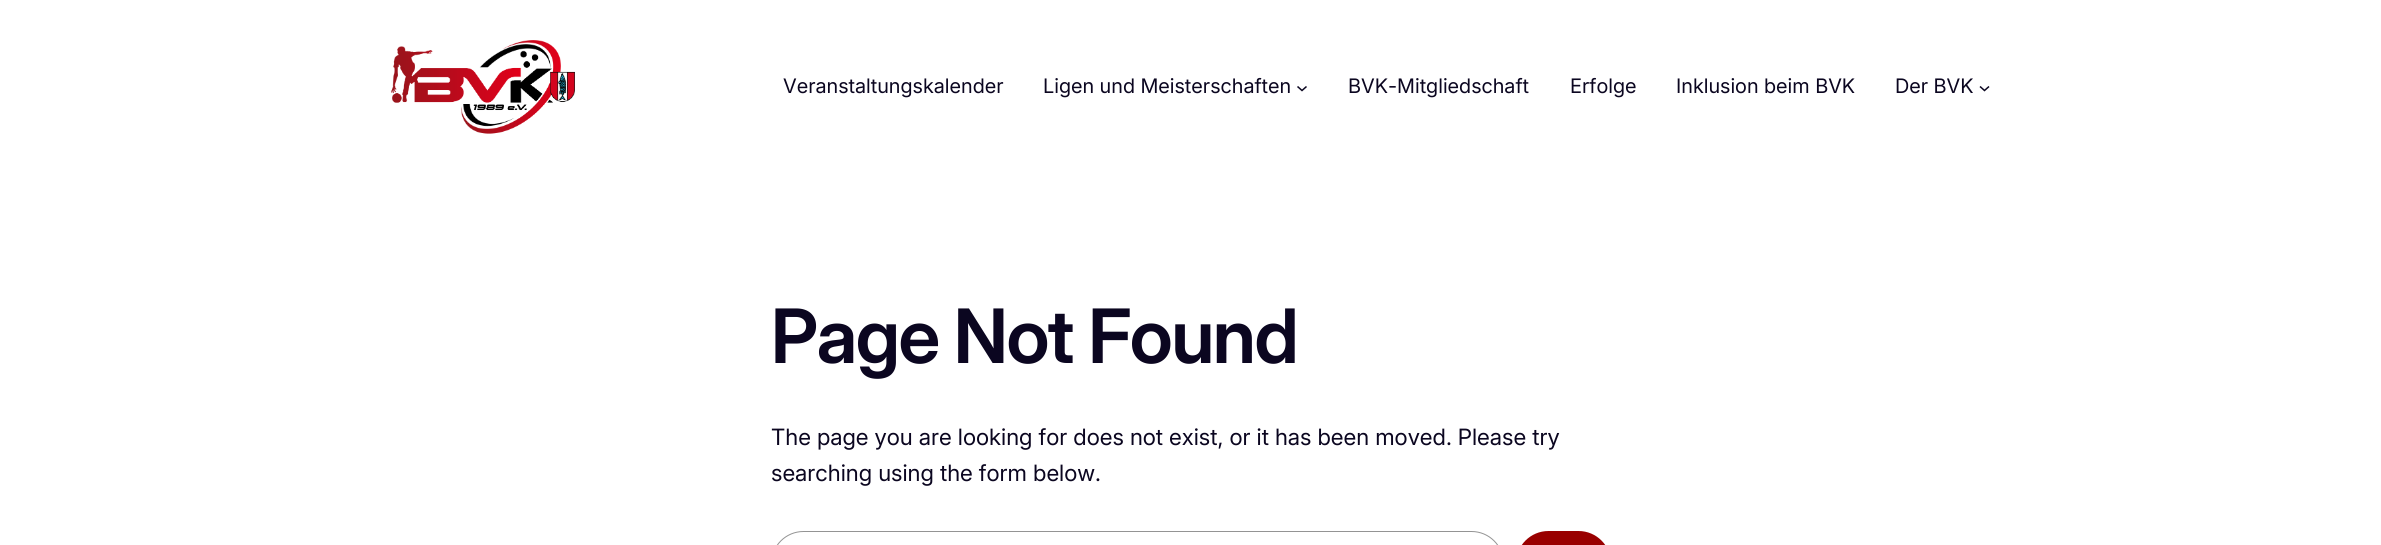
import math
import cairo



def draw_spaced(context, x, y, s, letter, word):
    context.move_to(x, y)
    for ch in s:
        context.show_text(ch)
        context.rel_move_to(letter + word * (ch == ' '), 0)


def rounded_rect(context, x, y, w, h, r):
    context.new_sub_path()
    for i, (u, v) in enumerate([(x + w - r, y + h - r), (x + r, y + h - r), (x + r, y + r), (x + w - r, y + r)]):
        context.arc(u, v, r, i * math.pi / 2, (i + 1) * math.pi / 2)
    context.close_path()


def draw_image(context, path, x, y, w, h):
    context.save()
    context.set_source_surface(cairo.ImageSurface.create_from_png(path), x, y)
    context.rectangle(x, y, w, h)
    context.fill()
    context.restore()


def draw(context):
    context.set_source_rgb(1, 1, 1)
    context.paint()
    draw_image(context, "images/1.png", 391, 40, 184, 94)
    context.new_path()
    context.move_to(1297.5, 86.5)
    context.line_to(1302, 90.5)
    context.line_to(1306.5, 86.5)
    context.set_source_rgb(11 / 255, 6 / 255, 32 / 255)
    context.set_line_width(1.5)
    context.stroke()
    context.new_path()
    context.move_to(1980, 86.5)
    context.line_to(1984.5, 90.5)
    context.line_to(1989, 86.5)
    context.stroke()
    rounded_rect(context, 771.5, 531.5, 732, 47, 32)
    context.set_source_rgb(148 / 255, 148 / 255, 148 / 255)
    context.set_line_width(1)
    context.stroke()
    context.set_source_rgb(153 / 255, 0, 0)
    rounded_rect(context, 1516, 531, 95, 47, 32.5)
    context.fill()
    context.select_font_face("Inter")
    context.set_font_size(20)
    context.set_source_rgb(11 / 255, 6 / 255, 32 / 255)
    context.move_to(783, 93)
    context.show_text("Veranstaltungskalender")
    context.move_to(1043, 93)
    context.show_text("Ligen und Meisterschaften")
    context.move_to(1348, 93)
    context.show_text("BVK-Mitgliedschaft")
    context.move_to(1570, 93)
    context.show_text("Erfolge")
    context.move_to(1676, 93)
    context.show_text("Inklusion beim BVK")
    context.move_to(1895, 93)
    context.show_text("Der BVK")
    context.select_font_face("Inter SemiBold")
    context.set_font_size(75)
    draw_spaced(context, 771, 363, "Page Not Found", -1.5, 0)
    context.select_font_face("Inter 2")
    context.set_font_size(22.5)
    context.move_to(771, 445)
    context.show_text("The page you are looking for does not exist, or it has been moved. Please try")
    context.move_to(771, 481)
    context.show_text("searching using the form below.")


surface = cairo.ImageSurface(cairo.Format.RGB24, 2381, 545)
context = cairo.Context(surface)
options = cairo.FontOptions()
options.set_hint_metrics(cairo.HintMetrics.OFF)
options.set_hint_style(cairo.HintStyle.NONE)
context.set_font_options(options)
context.set_miter_limit(4)
draw(context)
surface.write_to_png("out.png")
